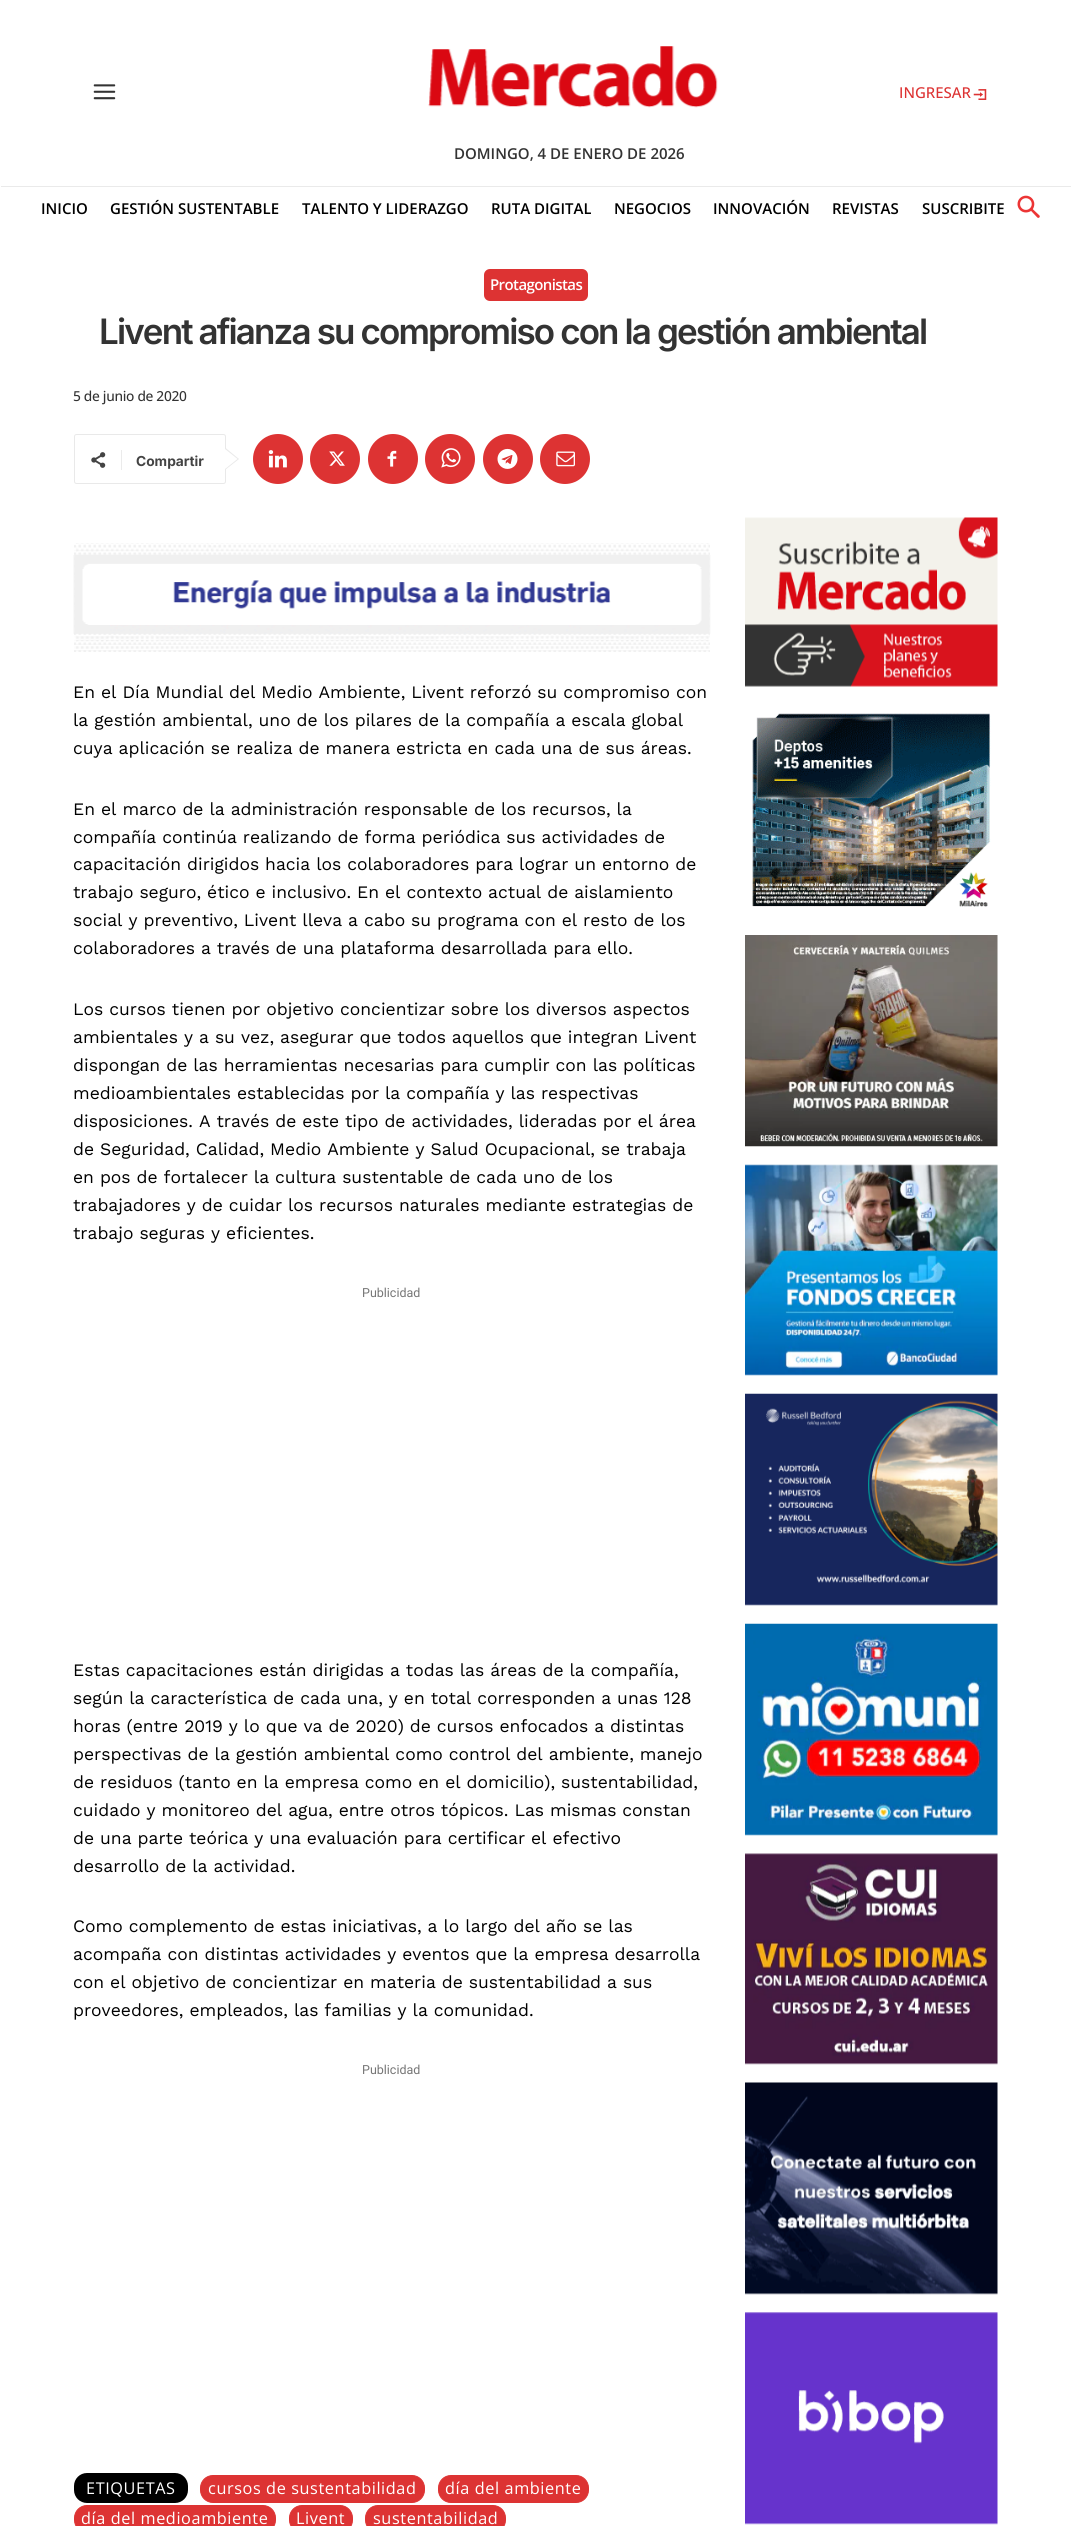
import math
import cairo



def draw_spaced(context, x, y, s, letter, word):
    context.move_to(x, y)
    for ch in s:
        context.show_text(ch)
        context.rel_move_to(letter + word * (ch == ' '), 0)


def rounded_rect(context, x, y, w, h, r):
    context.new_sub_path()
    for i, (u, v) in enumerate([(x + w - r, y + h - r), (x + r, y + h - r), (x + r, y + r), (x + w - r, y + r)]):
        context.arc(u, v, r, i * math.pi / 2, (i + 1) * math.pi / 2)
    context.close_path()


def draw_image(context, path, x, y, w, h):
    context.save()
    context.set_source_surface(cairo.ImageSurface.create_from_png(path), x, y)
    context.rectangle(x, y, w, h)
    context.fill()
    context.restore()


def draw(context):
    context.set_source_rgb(1, 1, 1)
    context.paint()
    draw_image(context, "images/1.png", 93, 84, 23, 16)
    draw_image(context, "images/2.png", 973, 89, 14, 11)
    draw_image(context, "images/3.png", 428, 46, 290, 62)
    context.set_source_rgb(234 / 255, 234 / 255, 234 / 255)
    context.rectangle(1, 186, 1070, 1)
    context.fill()
    draw_image(context, "images/4.png", 1017, 195, 23, 23)
    context.set_source_rgb(221 / 255, 51 / 255, 51 / 255)
    rounded_rect(context, 484, 269, 104, 32, 6)
    context.fill()
    rounded_rect(context, 74.5, 434.5, 151, 49, 2)
    context.set_source_rgb(233 / 255, 233 / 255, 233 / 255)
    context.set_line_width(1)
    context.stroke()
    context.new_path()
    context.move_to(225, 470)
    context.line_to(225, 447.5)
    context.line_to(239, 459)
    context.close_path()
    context.fill()
    draw_image(context, "images/5.png", 91, 452, 15, 16)
    context.set_source_rgb(235 / 255, 235 / 255, 235 / 255)
    context.rectangle(121, 450, 1, 20)
    context.fill()
    context.set_source_rgb(1, 1, 1)
    context.new_path()
    context.move_to(225, 469)
    context.line_to(225, 449)
    context.line_to(237.5, 459)
    context.close_path()
    context.fill()
    context.set_source_rgb(221 / 255, 51 / 255, 51 / 255)
    context.arc(278, 459, 25, 0, 2 * math.pi)
    context.fill()
    draw_image(context, "images/6.png", 268, 450, 19, 18)
    context.arc(335, 459, 25, 0, 2 * math.pi)
    context.fill()
    draw_image(context, "images/7.png", 329, 451, 16, 15)
    context.arc(393, 459, 25, 0, 2 * math.pi)
    context.fill()
    draw_image(context, "images/8.png", 387, 450, 10, 17)
    context.arc(450, 459, 25, 0, 2 * math.pi)
    context.fill()
    draw_image(context, "images/9.png", 441, 448, 20, 20)
    context.arc(508, 459, 25, 0, 2 * math.pi)
    context.fill()
    draw_image(context, "images/10.png", 497, 448, 21, 21)
    context.arc(565, 459, 25, 0, 2 * math.pi)
    context.fill()
    draw_image(context, "images/11.png", 556, 451, 19, 16)
    draw_image(context, "images/12.png", 74, 543, 636, 109)
    draw_image(context, "images/14.png", 74, 555, 636, 85)
    draw_image(context, "images/13.png", 73, 555, 638, 79)
    context.set_source_rgb(0, 0, 0)
    rounded_rect(context, 74, 2473, 114, 30, 13)
    context.fill()
    context.set_source_rgb(221 / 255, 51 / 255, 51 / 255)
    rounded_rect(context, 200.5, 2475.5, 224, 27, 12.5)
    context.fill_preserve()
    context.stroke()
    rounded_rect(context, 438.5, 2475.5, 150, 27, 12.5)
    context.fill_preserve()
    context.stroke()
    rounded_rect(context, 74.5, 2505.5, 201, 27, 12.5)
    context.fill_preserve()
    context.stroke()
    rounded_rect(context, 289.5, 2505.5, 63, 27, 12.5)
    context.fill_preserve()
    context.stroke()
    rounded_rect(context, 365.5, 2505.5, 140, 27, 12.5)
    context.fill_preserve()
    context.stroke()
    draw_image(context, "images/15.png", 745, 517, 253, 170)
    draw_image(context, "images/16.png", 752, 713, 239, 194)
    draw_image(context, "images/17.png", 745, 935, 253, 212)
    draw_image(context, "images/18.png", 745, 1164, 253, 212)
    draw_image(context, "images/19.png", 745, 1393, 253, 213)
    draw_image(context, "images/20.png", 745, 1623, 253, 213)
    draw_image(context, "images/21.png", 745, 1853, 253, 212)
    draw_image(context, "images/22.png", 745, 2082, 253, 213)
    draw_image(context, "images/23.png", 745, 2312, 253, 213)
    context.select_font_face("Open Sans Medium")
    context.set_font_size(15)
    context.move_to(899, 98)
    context.show_text("INGRESAR")
    context.select_font_face("Open Sans SemiBold")
    context.set_source_rgb(51 / 255, 51 / 255, 51 / 255)
    context.move_to(454, 159)
    context.show_text("DOMINGO, 4 DE ENERO DE 2026")
    context.set_source_rgb(0, 0, 0)
    context.move_to(41, 214)
    context.show_text("INICIO")
    context.move_to(110, 214)
    context.show_text("GESTIÓN SUSTENTABLE")
    context.move_to(302, 214)
    context.show_text("TALENTO Y LIDERAZGO")
    context.move_to(491, 214)
    context.show_text("RUTA DIGITAL")
    context.move_to(614, 214)
    context.show_text("NEGOCIOS")
    context.move_to(713, 214)
    context.show_text("INNOVACIÓN")
    context.move_to(832, 214)
    context.show_text("REVISTAS")
    context.move_to(922, 214)
    context.show_text("SUSCRIBITE")
    context.set_source_rgb(1, 1, 1)
    draw_spaced(context, 490, 290, "Protagonistas", -0.6, 0)
    context.select_font_face("Inter SemiBold")
    context.set_font_size(35)
    context.set_source_rgb(51 / 255, 51 / 255, 51 / 255)
    draw_spaced(context, 99, 344, "Livent afianza su compromiso con la gestión ambiental", -1.88, 0)
    context.select_font_face("Open Sans Medium")
    context.set_font_size(13.75)
    draw_spaced(context, 73, 401, "5 de junio de 2020", -0.3, 0)
    context.select_font_face("Inter", cairo.FontSlant.NORMAL, cairo.FontWeight.BOLD)
    context.set_source_rgb(68 / 255, 68 / 255, 68 / 255)
    context.move_to(136, 466)
    context.show_text("Compartir")
    context.select_font_face("Work Sans")
    context.set_font_size(17.5)
    context.set_source_rgb(0, 0, 0)
    context.move_to(73, 698)
    context.show_text("En el Día Mundial del Medio Ambiente, Livent reforzó su compromiso con")
    context.move_to(73, 726)
    context.show_text("la gestión ambiental, uno de los pilares de la compañía a escala global")
    context.move_to(73, 754)
    context.show_text("cuya aplicación se realiza de manera estricta en cada una de sus áreas.")
    context.move_to(73, 815)
    context.show_text("En el marco de la administración responsable de los recursos, la")
    context.move_to(73, 843)
    context.show_text("compañía continúa realizando de forma periódica sus actividades de")
    context.move_to(73, 870)
    context.show_text("capacitación dirigidos hacia los colaboradores para lograr un entorno de")
    context.move_to(73, 898)
    context.show_text("trabajo seguro, ético e inclusivo. En el contexto actual de aislamiento")
    context.move_to(73, 926)
    context.show_text("social y preventivo, Livent lleva a cabo su programa con el resto de los")
    context.move_to(73, 954)
    context.show_text("colaboradores a través de una plataforma desarrollada para ello.")
    context.move_to(73, 1015)
    context.show_text("Los cursos tienen por objetivo concientizar sobre los diversos aspectos")
    context.move_to(73, 1043)
    context.show_text("ambientales y a su vez, asegurar que todos aquellos que integran Livent")
    context.move_to(73, 1071)
    context.show_text("dispongan de las herramientas necesarias para cumplir con las políticas")
    context.move_to(73, 1099)
    context.show_text("medioambientales establecidas por la compañía y las respectivas")
    context.move_to(73, 1127)
    context.show_text("disposiciones. A través de este tipo de actividades, lideradas por el área")
    context.move_to(73, 1155)
    context.show_text("de Seguridad, Calidad, Medio Ambiente y Salud Ocupacional, se trabaja")
    context.move_to(73, 1183)
    context.show_text("en pos de fortalecer la cultura sustentable de cada uno de los")
    context.move_to(73, 1211)
    context.show_text("trabajadores y de cuidar los recursos naturales mediante estrategias de")
    context.move_to(73, 1239)
    context.show_text("trabajo seguras y eficientes.")
    context.select_font_face("Roboto")
    context.set_font_size(12.5)
    context.set_source_rgb(118 / 255, 118 / 255, 118 / 255)
    context.move_to(362, 1297)
    context.show_text("Publicidad")
    context.select_font_face("Work Sans")
    context.set_font_size(17.5)
    context.set_source_rgb(0, 0, 0)
    context.move_to(73, 1676)
    context.show_text("Estas capacitaciones están dirigidas a todas las áreas de la compañía,")
    context.move_to(73, 1704)
    context.show_text("según la característica de cada una, y en total corresponden a unas 128")
    context.move_to(73, 1732)
    context.show_text("horas (entre 2019 y lo que va de 2020) de cursos enfocados a distintas")
    context.move_to(73, 1760)
    context.show_text("perspectivas de la gestión ambiental como control del ambiente, manejo")
    context.move_to(73, 1788)
    context.show_text("de residuos (tanto en la empresa como en el domicilio), sustentabilidad,")
    context.move_to(73, 1816)
    context.show_text("cuidado y monitoreo del agua, entre otros tópicos. Las mismas constan")
    context.move_to(73, 1844)
    context.show_text("de una parte teórica y una evaluación para certificar el efectivo")
    context.move_to(73, 1872)
    context.show_text("desarrollo de la actividad.")
    context.move_to(73, 1932)
    context.show_text("Como complemento de estas iniciativas, a lo largo del año se las")
    context.move_to(73, 1960)
    context.show_text("acompaña con distintas actividades y eventos que la empresa desarrolla")
    context.move_to(73, 1988)
    context.show_text("con el objetivo de concientizar en materia de sustentabilidad a sus")
    context.move_to(73, 2016)
    context.show_text("proveedores, empleados, las familias y la comunidad.")
    context.select_font_face("Roboto")
    context.set_font_size(12.5)
    context.set_source_rgb(118 / 255, 118 / 255, 118 / 255)
    context.move_to(362, 2074)
    context.show_text("Publicidad")
    context.select_font_face("Open Sans")
    context.set_font_size(16.25)
    context.set_source_rgb(1, 1, 1)
    draw_spaced(context, 86, 2494, "ETIQUETAS", 0.6, 0)
    draw_spaced(context, 208, 2494, "cursos de sustentabilidad", 0.6, 0)
    draw_spaced(context, 445, 2494, "día del ambiente", 0.6, 0)
    draw_spaced(context, 81, 2524, "día del medioambiente", 0.6, 0)
    draw_spaced(context, 296, 2524, "Livent", 0.6, 0)
    draw_spaced(context, 373, 2524, "sustentabilidad", 0.6, 0)


surface = cairo.ImageSurface(cairo.Format.RGB24, 1071, 2526)
context = cairo.Context(surface)
options = cairo.FontOptions()
options.set_hint_metrics(cairo.HintMetrics.OFF)
options.set_hint_style(cairo.HintStyle.NONE)
context.set_font_options(options)
context.set_miter_limit(4)
draw(context)
surface.write_to_png("out.png")
